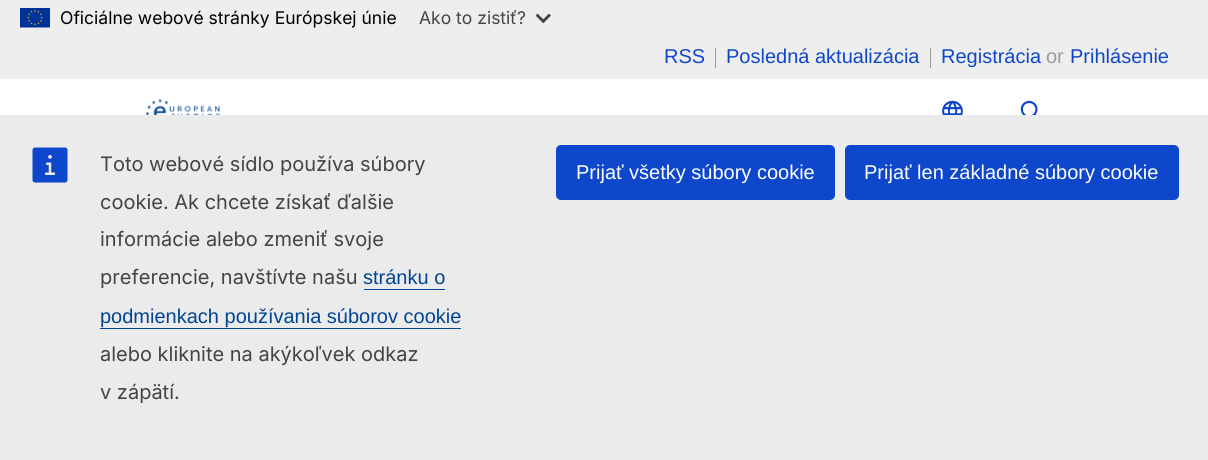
import math
import cairo



def rounded_rect(context, x, y, w, h, r):
    context.new_sub_path()
    for i, (u, v) in enumerate([(x + w - r, y + h - r), (x + r, y + h - r), (x + r, y + r), (x + w - r, y + r)]):
        context.arc(u, v, r, i * math.pi / 2, (i + 1) * math.pi / 2)
    context.close_path()


def draw_image(context, path, x, y, w, h):
    context.save()
    context.set_source_surface(cairo.ImageSurface.create_from_png(path), x, y)
    context.rectangle(x, y, w, h)
    context.fill()
    context.restore()


def draw(context):
    context.set_source_rgb(238 / 255, 238 / 255, 238 / 255)
    context.paint()
    draw_image(context, "images/1.png", 20, 8, 30, 20)
    draw_image(context, "images/2.png", 536, 13, 15, 11)
    context.set_source_rgb(1, 1, 1)
    context.rectangle(0, 79, 1208, 36)
    context.fill()
    context.set_source_rgb(155 / 255, 155 / 255, 155 / 255)
    context.rectangle(715, 48, 1, 20)
    context.fill()
    context.rectangle(930, 48, 1, 20)
    context.fill()
    draw_image(context, "images/3.png", 145, 98, 75, 17)
    draw_image(context, "images/4.png", 942, 100, 21, 15)
    draw_image(context, "images/5.png", 1020, 100, 18, 15)
    context.set_source_rgb(235 / 255, 235 / 255, 235 / 255)
    context.rectangle(0, 115, 1208, 345)
    context.fill()
    draw_image(context, "images/6.png", 32, 147, 36, 36)
    context.set_source_rgb(0, 68 / 255, 148 / 255)
    context.rectangle(364, 289, 81, 1)
    context.fill()
    context.rectangle(100, 328, 361, 1)
    context.fill()
    context.set_source_rgb(14 / 255, 71 / 255, 203 / 255)
    rounded_rect(context, 556, 145, 279, 55, 5)
    context.fill()
    rounded_rect(context, 845, 145, 334, 55, 5)
    context.fill()
    context.select_font_face("Inter")
    context.set_font_size(17.5)
    context.set_source_rgb(0, 0, 0)
    context.move_to(60, 24)
    context.show_text("Oficiálne webové stránky Európskej únie")
    context.set_source_rgb(68 / 255, 68 / 255, 68 / 255)
    context.move_to(419, 24)
    context.show_text("Ako to zistiť?")
    context.select_font_face("Liberation Sans")
    context.set_font_size(20)
    context.set_source_rgb(14 / 255, 71 / 255, 203 / 255)
    context.move_to(664, 63)
    context.show_text("RSS")
    context.move_to(726, 63)
    context.show_text("Posledná aktualizácia")
    context.move_to(941, 63)
    context.show_text("Registrácia")
    context.set_source_rgb(155 / 255, 155 / 255, 155 / 255)
    context.move_to(1046, 63)
    context.show_text("or")
    context.set_source_rgb(14 / 255, 71 / 255, 203 / 255)
    context.move_to(1070, 63)
    context.show_text("Prihlásenie")
    context.select_font_face("Inter")
    context.set_source_rgb(68 / 255, 68 / 255, 68 / 255)
    context.move_to(100, 171)
    context.show_text("Toto webové sídlo používa súbory")
    context.move_to(100, 209)
    context.show_text("cookie. Ak chcete získať ďalšie")
    context.move_to(100, 246)
    context.show_text("informácie alebo zmeniť svoje")
    context.move_to(100, 284)
    context.show_text("preferencie, navštívte našu")
    context.select_font_face("Liberation Sans")
    context.set_source_rgb(0, 68 / 255, 148 / 255)
    context.move_to(363, 284)
    context.show_text("stránku o")
    context.move_to(100, 323)
    context.show_text("podmienkach používania súborov cookie")
    context.select_font_face("Inter")
    context.set_source_rgb(68 / 255, 68 / 255, 68 / 255)
    context.move_to(100, 361)
    context.show_text("alebo kliknite na akýkoľvek odkaz")
    context.move_to(100, 399)
    context.show_text("v zápätí.")
    context.select_font_face("Liberation Sans")
    context.set_source_rgb(1, 1, 1)
    context.move_to(576, 179)
    context.show_text("Prijať všetky súbory cookie")
    context.move_to(864, 179)
    context.show_text("Prijať len základné súbory cookie")


surface = cairo.ImageSurface(cairo.Format.RGB24, 1208, 460)
context = cairo.Context(surface)
options = cairo.FontOptions()
options.set_hint_metrics(cairo.HintMetrics.OFF)
options.set_hint_style(cairo.HintStyle.NONE)
context.set_font_options(options)
context.set_miter_limit(4)
draw(context)
surface.write_to_png("out.png")
